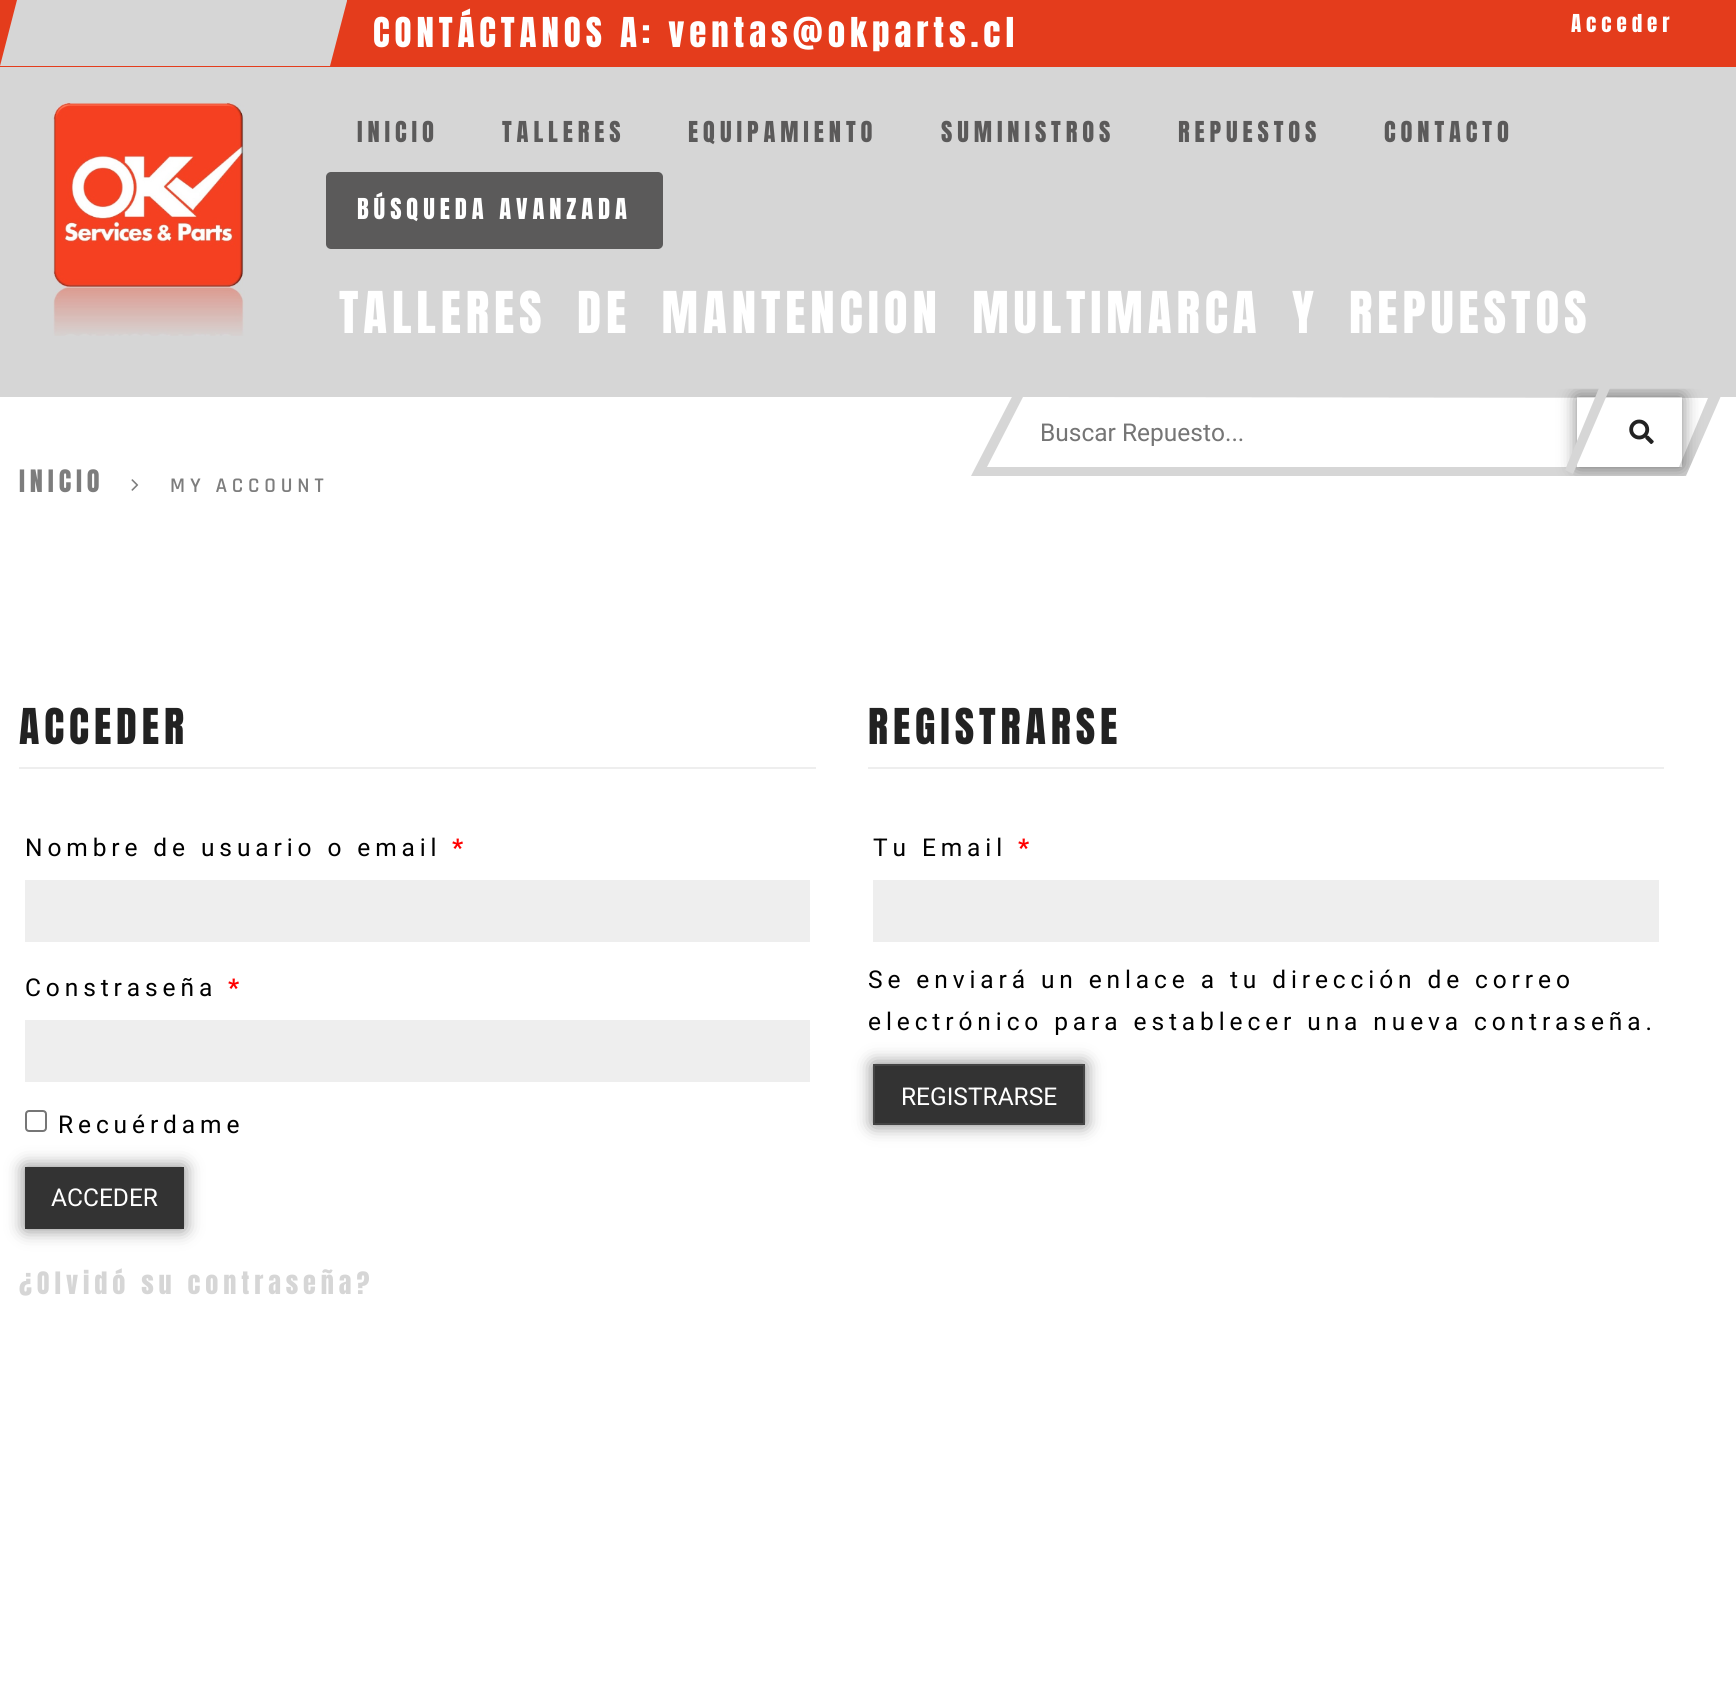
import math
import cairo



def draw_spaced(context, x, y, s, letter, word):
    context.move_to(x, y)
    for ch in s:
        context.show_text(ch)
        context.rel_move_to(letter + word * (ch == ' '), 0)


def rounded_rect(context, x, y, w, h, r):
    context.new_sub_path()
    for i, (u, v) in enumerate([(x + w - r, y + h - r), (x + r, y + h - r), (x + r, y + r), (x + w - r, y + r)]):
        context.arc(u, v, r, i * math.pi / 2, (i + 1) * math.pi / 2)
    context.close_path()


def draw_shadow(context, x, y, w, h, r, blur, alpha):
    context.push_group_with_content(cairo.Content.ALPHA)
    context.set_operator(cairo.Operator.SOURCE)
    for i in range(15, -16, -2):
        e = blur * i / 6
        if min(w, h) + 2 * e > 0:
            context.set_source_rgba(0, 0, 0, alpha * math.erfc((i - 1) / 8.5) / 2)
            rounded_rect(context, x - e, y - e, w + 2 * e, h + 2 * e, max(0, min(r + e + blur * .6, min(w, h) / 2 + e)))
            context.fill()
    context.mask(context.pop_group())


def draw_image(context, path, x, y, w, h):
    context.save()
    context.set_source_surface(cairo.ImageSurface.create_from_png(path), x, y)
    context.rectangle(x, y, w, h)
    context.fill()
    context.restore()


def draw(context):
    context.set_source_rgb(1, 1, 1)
    context.paint()
    context.set_source_rgb(228 / 255, 60 / 255, 28 / 255)
    context.rectangle(0, 0, 1736, 67)
    context.fill()
    context.set_source_rgb(214 / 255, 214 / 255, 214 / 255)
    context.new_path()
    context.move_to(17, 0)
    context.line_to(347, 0)
    context.line_to(347, 1)
    context.line_to(330, 66)
    context.line_to(0, 66)
    context.close_path()
    context.fill()
    context.rectangle(0, 67, 1736, 330)
    context.fill()
    draw_image(context, "images/1.png", 52, 102, 193, 234)
    context.set_source_rgb(91 / 255, 90 / 255, 90 / 255)
    rounded_rect(context, 326, 172, 337, 77, 5)
    context.fill()
    context.set_source_rgb(214 / 255, 214 / 255, 214 / 255)
    context.new_path()
    context.move_to(971, 476)
    context.line_to(1686, 476)
    context.line_to(1724, 389)
    context.line_to(1016, 389)
    context.close_path()
    context.fill()
    context.set_source_rgb(1, 1, 1)
    context.new_path()
    context.move_to(1023, 397)
    context.line_to(1708, 398)
    context.line_to(1679, 467)
    context.line_to(987, 467)
    context.close_path()
    context.fill()
    context.save()
    context.new_path()
    context.move_to(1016.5, 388.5)
    context.line_to(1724, 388.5)
    context.line_to(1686, 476)
    context.line_to(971.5, 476)
    context.close_path()
    context.clip()
    context.set_fill_rule(cairo.FillRule.EVEN_ODD)
    context.new_path()
    context.move_to(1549, 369)
    context.line_to(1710, 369)
    context.line_to(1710, 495)
    context.line_to(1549, 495)
    context.close_path()
    context.move_to(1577, 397)
    context.line_to(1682, 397)
    context.line_to(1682, 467)
    context.line_to(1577, 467)
    context.close_path()
    context.clip()
    context.set_source_rgb(0, 0, 0)
    draw_shadow(context, 1577, 397, 105, 70, 0, 9, 0.5)
    context.restore()
    draw_image(context, "images/2.png", 1629, 419, 25, 25)
    context.set_source_rgb(214 / 255, 214 / 255, 214 / 255)
    context.new_path()
    context.move_to(1610, 388)
    context.line_to(1573, 474)
    context.line_to(1565, 470)
    context.line_to(1599, 388)
    context.close_path()
    context.fill()
    draw_image(context, "images/3.png", 131, 479, 8, 12)
    context.set_source_rgb(238 / 255, 238 / 255, 238 / 255)
    context.rectangle(19, 767, 797, 2)
    context.fill()
    context.rectangle(25, 880, 785, 62)
    context.fill()
    context.rectangle(25, 1020, 785, 62)
    context.fill()
    rounded_rect(context, 26, 1111, 20, 20, 3)
    context.set_source_rgb(118 / 255, 118 / 255, 118 / 255)
    context.stroke()
    context.set_source_rgb(0, 0, 0)
    draw_shadow(context, 25, 1167, 159, 62, 0, 9, 0.5)
    context.set_source_rgb(51 / 255, 51 / 255, 51 / 255)
    context.rectangle(25, 1167, 159, 62)
    context.fill()
    context.set_source_rgb(238 / 255, 238 / 255, 238 / 255)
    context.rectangle(868, 767, 796, 2)
    context.fill()
    context.rectangle(873, 880, 786, 62)
    context.fill()
    context.set_source_rgb(0, 0, 0)
    draw_shadow(context, 873, 1064, 212, 61, 0, 9, 0.5)
    context.set_source_rgb(51 / 255, 51 / 255, 51 / 255)
    context.rectangle(874, 1065, 210, 59)
    context.fill_preserve()
    context.set_source_rgb(68 / 255, 68 / 255, 68 / 255)
    context.stroke()
    context.select_font_face("Anton")
    context.set_font_size(35)
    context.set_source_rgb(1, 1, 1)
    draw_spaced(context, 373, 47, "CONTÁCTANOS A: ventas@okparts.cl", 4.9, 0)
    context.set_font_size(21)
    draw_spaced(context, 1571, 32, "Acceder", 4.9, 0)
    context.set_font_size(24.5)
    context.set_source_rgb(91 / 255, 90 / 255, 90 / 255)
    draw_spaced(context, 357, 142, "INICIO", 4.9, 0)
    draw_spaced(context, 502, 142, "TALLERES", 4.9, 0)
    draw_spaced(context, 688, 142, "EQUIPAMIENTO", 4.9, 0)
    draw_spaced(context, 941, 142, "SUMINISTROS", 4.9, 0)
    draw_spaced(context, 1178, 142, "REPUESTOS", 4.9, 0)
    draw_spaced(context, 1384, 142, "CONTACTO", 4.9, 0)
    context.set_source_rgb(1, 1, 1)
    draw_spaced(context, 357, 219, "BÚSQUEDA AVANZADA", 4.9, 0)
    context.set_font_size(49)
    draw_spaced(context, 339, 333, "TALLERES DE MANTENCION MULTIMARCA Y REPUESTOS", 4.9, 14)
    context.select_font_face("Roboto")
    context.set_font_size(24.5)
    context.set_source_rgb(117 / 255, 117 / 255, 117 / 255)
    context.move_to(1040, 441)
    context.show_text("Buscar Repuesto...")
    context.select_font_face("Anton")
    context.set_font_size(26.25)
    context.set_source_rgb(125 / 255, 125 / 255, 125 / 255)
    draw_spaced(context, 19, 492, "INICIO", 4.9, 0)
    context.select_font_face("Rajdhani SemiBold")
    context.set_font_size(21)
    draw_spaced(context, 170, 492, "MY ACCOUNT", 4.9, 0)
    context.select_font_face("Anton")
    context.set_font_size(42)
    context.set_source_rgb(34 / 255, 34 / 255, 34 / 255)
    draw_spaced(context, 19, 744, "ACCEDER", 4.9, 0)
    context.select_font_face("Roboto")
    context.set_font_size(24.5)
    context.set_source_rgb(0, 0, 0)
    draw_spaced(context, 25, 856, "Nombre de usuario o email", 4.9, 0)
    context.select_font_face("Roboto", cairo.FontSlant.NORMAL, cairo.FontWeight.BOLD)
    context.set_source_rgb(1, 0, 0)
    draw_spaced(context, 452, 856, "*", 4.9, 0)
    context.select_font_face("Roboto")
    context.set_source_rgb(0, 0, 0)
    draw_spaced(context, 25, 996, "Constraseña", 4.9, 0)
    context.select_font_face("Roboto", cairo.FontSlant.NORMAL, cairo.FontWeight.BOLD)
    context.set_source_rgb(1, 0, 0)
    draw_spaced(context, 228, 996, "*", 4.9, 0)
    context.select_font_face("Roboto")
    context.set_source_rgb(0, 0, 0)
    draw_spaced(context, 58, 1133, "Recuérdame", 4.9, 0)
    context.set_source_rgb(1, 1, 1)
    context.move_to(51, 1206)
    context.show_text("ACCEDER")
    context.select_font_face("Anton")
    context.set_font_size(26.25)
    context.set_source_rgb(214 / 255, 214 / 255, 214 / 255)
    draw_spaced(context, 19, 1294, "¿Olvidó su contraseña?", 4.9, 0)
    context.set_font_size(42)
    context.set_source_rgb(34 / 255, 34 / 255, 34 / 255)
    draw_spaced(context, 868, 744, "REGISTRARSE", 4.9, 0)
    context.select_font_face("Roboto")
    context.set_font_size(24.5)
    context.set_source_rgb(0, 0, 0)
    draw_spaced(context, 873, 856, "Tu Email", 4.9, 0)
    context.select_font_face("Roboto", cairo.FontSlant.NORMAL, cairo.FontWeight.BOLD)
    context.set_source_rgb(1, 0, 0)
    draw_spaced(context, 1018, 856, "*", 4.9, 0)
    context.select_font_face("Roboto")
    context.set_source_rgb(0, 0, 0)
    draw_spaced(context, 868, 988, "Se enviará un enlace a tu dirección de correo", 4.9, 0)
    draw_spaced(context, 868, 1030, "electrónico para establecer una nueva contraseña.", 4.9, 0)
    context.set_source_rgb(1, 1, 1)
    context.move_to(901, 1105)
    context.show_text("REGISTRARSE")


surface = cairo.ImageSurface(cairo.Format.RGB24, 1736, 1708)
context = cairo.Context(surface)
options = cairo.FontOptions()
options.set_hint_metrics(cairo.HintMetrics.OFF)
options.set_hint_style(cairo.HintStyle.NONE)
context.set_font_options(options)
context.set_miter_limit(4)
draw(context)
surface.write_to_png("out.png")
